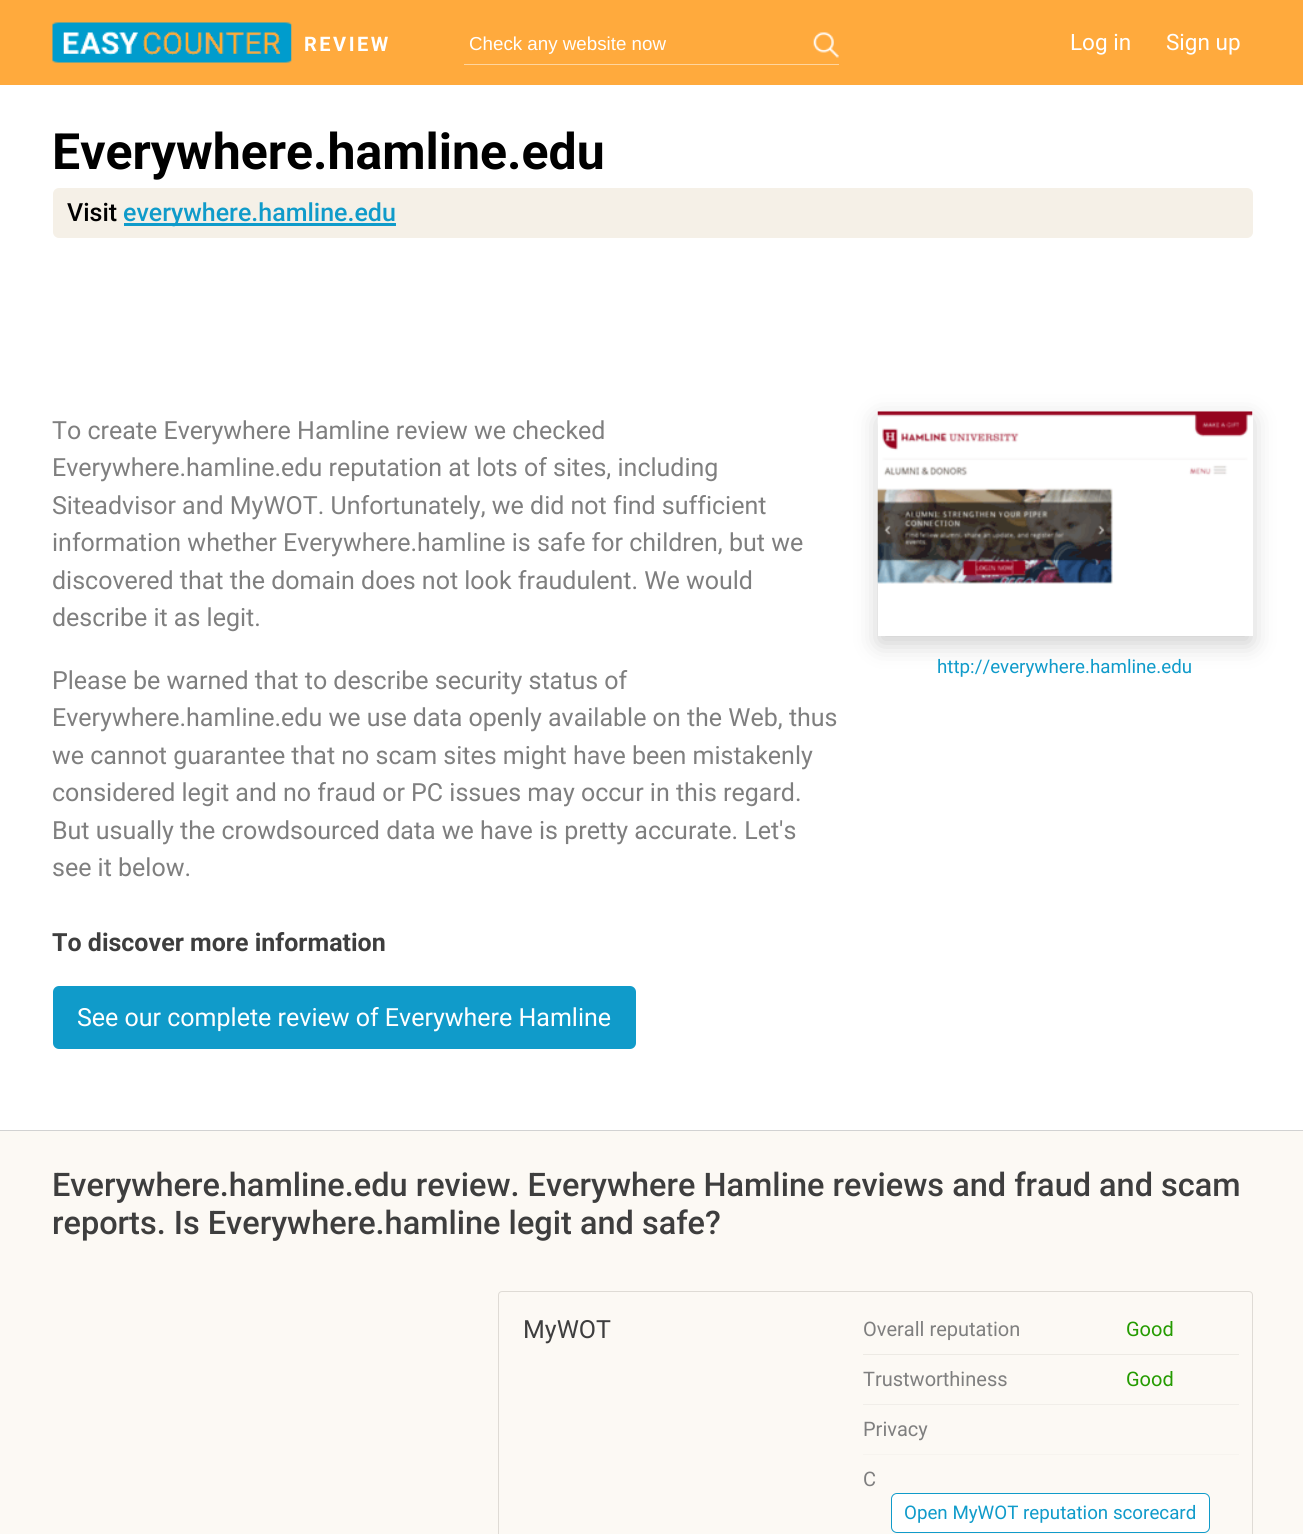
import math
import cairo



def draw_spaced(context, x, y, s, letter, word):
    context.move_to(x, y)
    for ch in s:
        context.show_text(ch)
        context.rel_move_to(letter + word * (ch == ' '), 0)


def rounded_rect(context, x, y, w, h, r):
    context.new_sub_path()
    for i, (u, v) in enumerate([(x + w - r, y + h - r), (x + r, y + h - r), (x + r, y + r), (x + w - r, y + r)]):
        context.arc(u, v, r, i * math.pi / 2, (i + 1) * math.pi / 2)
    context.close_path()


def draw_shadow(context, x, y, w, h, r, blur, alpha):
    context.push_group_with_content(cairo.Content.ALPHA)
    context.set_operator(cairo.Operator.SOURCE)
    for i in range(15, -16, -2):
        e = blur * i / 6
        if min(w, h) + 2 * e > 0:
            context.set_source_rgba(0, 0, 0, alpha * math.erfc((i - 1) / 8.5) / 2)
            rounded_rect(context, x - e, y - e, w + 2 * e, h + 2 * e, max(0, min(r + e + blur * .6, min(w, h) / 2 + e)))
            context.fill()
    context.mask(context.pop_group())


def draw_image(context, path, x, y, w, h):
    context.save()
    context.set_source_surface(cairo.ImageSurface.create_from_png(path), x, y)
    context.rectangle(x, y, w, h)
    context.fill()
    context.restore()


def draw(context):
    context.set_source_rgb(1, 1, 1)
    context.paint()
    context.set_source_rgb(1, 170 / 255, 61 / 255)
    context.rectangle(0, 0, 1303, 85)
    context.fill()
    draw_image(context, "images/1.png", 52, 22, 240, 41)
    context.set_source_rgb(1, 213 / 255, 158 / 255)
    context.rectangle(464, 64, 375, 1)
    context.fill()
    draw_image(context, "images/2.png", 813, 32, 26, 26)
    context.set_source_rgb(210 / 255, 210 / 255, 210 / 255)
    context.rectangle(0, 1130, 1303, 1)
    context.fill()
    context.set_source_rgb(245 / 255, 240 / 255, 231 / 255)
    rounded_rect(context, 53, 188, 1200, 50, 6)
    context.fill()
    context.set_source_rgb(16 / 255, 155 / 255, 202 / 255)
    context.rectangle(124, 223, 272, 3)
    context.fill()
    rounded_rect(context, 53, 986, 583, 63, 6)
    context.fill()
    context.save()
    context.set_fill_rule(cairo.FillRule.EVEN_ODD)
    context.new_path()
    context.move_to(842, 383)
    context.line_to(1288, 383)
    context.line_to(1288, 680)
    context.line_to(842, 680)
    context.close_path()
    context.move_to(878, 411)
    context.line_to(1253, 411)
    context.line_to(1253, 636)
    context.line_to(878, 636)
    context.close_path()
    context.clip()
    context.set_source_rgb(204 / 255, 204 / 255, 204 / 255)
    draw_shadow(context, 879, 420, 372, 223, 0, 12, 1)
    context.restore()
    draw_image(context, "images/3.png", 877, 411, 376, 173)
    context.set_source_rgb(252 / 255, 249 / 255, 244 / 255)
    context.rectangle(0, 1131, 1303, 403)
    context.fill()
    rounded_rect(context, 498.5, 1291.5, 754, 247, 3.5)
    context.set_source_rgb(223 / 255, 219 / 255, 213 / 255)
    context.set_line_width(1)
    context.stroke()
    context.rectangle(863, 1354, 376, 1)
    context.fill()
    context.rectangle(863, 1404, 376, 1)
    context.fill()
    context.rectangle(863, 1454, 376, 1)
    context.fill()
    context.save()
    rounded_rect(context, 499, 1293, 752, 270, 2.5)
    context.clip()
    context.set_fill_rule(cairo.FillRule.EVEN_ODD)
    context.new_path()
    context.move_to(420, 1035)
    context.line_to(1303, 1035)
    context.line_to(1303, 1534)
    context.line_to(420, 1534)
    context.close_path()
    context.move_to(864, 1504)
    context.line_to(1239, 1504)
    context.line_to(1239, 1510)
    context.line_to(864, 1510)
    context.close_path()
    context.clip()
    context.set_source_rgb(252 / 255, 249 / 255, 244 / 255)
    draw_shadow(context, 739, 1354, 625, 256, 0, 106, 1)
    context.restore()
    context.set_source_rgb(1, 1, 1)
    rounded_rect(context, 891.5, 1493.5, 318, 39, 5.5)
    context.fill_preserve()
    context.set_source_rgb(16 / 255, 155 / 255, 202 / 255)
    context.stroke()
    context.select_font_face("Roboto", cairo.FontSlant.NORMAL, cairo.FontWeight.BOLD)
    context.set_font_size(20)
    context.set_source_rgb(1, 1, 1)
    draw_spaced(context, 304, 51, "REVIEW", 2.5, 0)
    context.select_font_face("Liberation Sans")
    context.set_font_size(18.75)
    context.move_to(469, 50)
    context.show_text("Check any website now")
    context.select_font_face("Roboto")
    context.set_font_size(22.5)
    context.move_to(1070, 50)
    context.show_text("Log in")
    context.move_to(1166, 50)
    context.show_text("Sign up")
    context.select_font_face("Roboto", cairo.FontSlant.NORMAL, cairo.FontWeight.BOLD)
    context.set_font_size(50)
    context.set_source_rgb(0, 0, 0)
    context.move_to(52, 169)
    context.show_text("Everywhere.hamline.edu")
    context.select_font_face("Roboto Medium")
    context.set_font_size(25)
    context.move_to(67, 221)
    context.show_text("Visit")
    context.set_source_rgb(16 / 255, 155 / 255, 202 / 255)
    context.move_to(123, 221)
    context.show_text("everywhere.hamline.edu")
    context.select_font_face("Roboto")
    context.set_source_rgb(127 / 255, 127 / 255, 127 / 255)
    context.move_to(52, 439)
    context.show_text("To create Everywhere Hamline review we checked")
    context.move_to(52, 476)
    context.show_text("Everywhere.hamline.edu reputation at lots of sites, including")
    context.move_to(52, 514)
    context.show_text("Siteadvisor and MyWOT. Unfortunately, we did not find sufficient")
    context.move_to(52, 551)
    context.show_text("information whether Everywhere.hamline is safe for children, but we")
    context.move_to(52, 589)
    context.show_text("discovered that the domain does not look fraudulent. We would")
    context.move_to(52, 626)
    context.show_text("describe it as legit.")
    context.move_to(52, 689)
    context.show_text("Please be warned that to describe security status of")
    context.move_to(52, 726)
    context.show_text("Everywhere.hamline.edu we use data openly available on the Web, thus")
    context.move_to(52, 764)
    context.show_text("we cannot guarantee that no scam sites might have been mistakenly")
    context.move_to(52, 801)
    context.show_text("considered legit and no fraud or PC issues may occur in this regard.")
    context.move_to(52, 839)
    context.show_text("But usually the crowdsourced data we have is pretty accurate. Let's")
    context.move_to(52, 876)
    context.show_text("see it below.")
    context.select_font_face("Roboto", cairo.FontSlant.NORMAL, cairo.FontWeight.BOLD)
    context.set_source_rgb(62 / 255, 62 / 255, 62 / 255)
    context.move_to(52, 951)
    context.show_text("To discover more information")
    context.select_font_face("Roboto")
    context.set_source_rgb(1, 1, 1)
    context.move_to(77, 1026)
    context.show_text("See our complete review of Everywhere Hamline")
    context.set_font_size(18.75)
    context.set_source_rgb(16 / 255, 155 / 255, 202 / 255)
    context.move_to(937, 673)
    context.show_text("http://everywhere.hamline.edu")
    context.select_font_face("Roboto Medium")
    context.set_font_size(32.5)
    context.set_source_rgb(62 / 255, 62 / 255, 62 / 255)
    context.move_to(52, 1196)
    context.show_text("Everywhere.hamline.edu review. Everywhere Hamline reviews and fraud and scam")
    context.move_to(52, 1234)
    context.show_text("reports. Is Everywhere.hamline legit and safe?")
    context.select_font_face("Roboto")
    context.set_font_size(25)
    context.move_to(523, 1338)
    context.show_text("MyWOT")
    context.set_font_size(20)
    context.set_source_rgb(127 / 255, 127 / 255, 127 / 255)
    context.move_to(863, 1336)
    context.show_text("Overall reputation")
    context.set_source_rgb(36 / 255, 155 / 255, 0)
    context.move_to(1126, 1336)
    context.show_text("Good")
    context.set_source_rgb(127 / 255, 127 / 255, 127 / 255)
    context.move_to(863, 1386)
    context.show_text("Trustworthiness")
    context.set_source_rgb(36 / 255, 155 / 255, 0)
    context.move_to(1126, 1386)
    context.show_text("Good")
    context.set_source_rgb(127 / 255, 127 / 255, 127 / 255)
    context.move_to(863, 1436)
    context.show_text("Privacy")
    context.move_to(863, 1486)
    context.show_text("C")
    context.set_font_size(18.75)
    context.set_source_rgb(16 / 255, 155 / 255, 202 / 255)
    context.move_to(904, 1519)
    context.show_text("Open MyWOT reputation scorecard")


surface = cairo.ImageSurface(cairo.Format.RGB24, 1303, 1534)
context = cairo.Context(surface)
options = cairo.FontOptions()
options.set_hint_metrics(cairo.HintMetrics.OFF)
options.set_hint_style(cairo.HintStyle.NONE)
context.set_font_options(options)
context.set_miter_limit(4)
draw(context)
surface.write_to_png("out.png")
